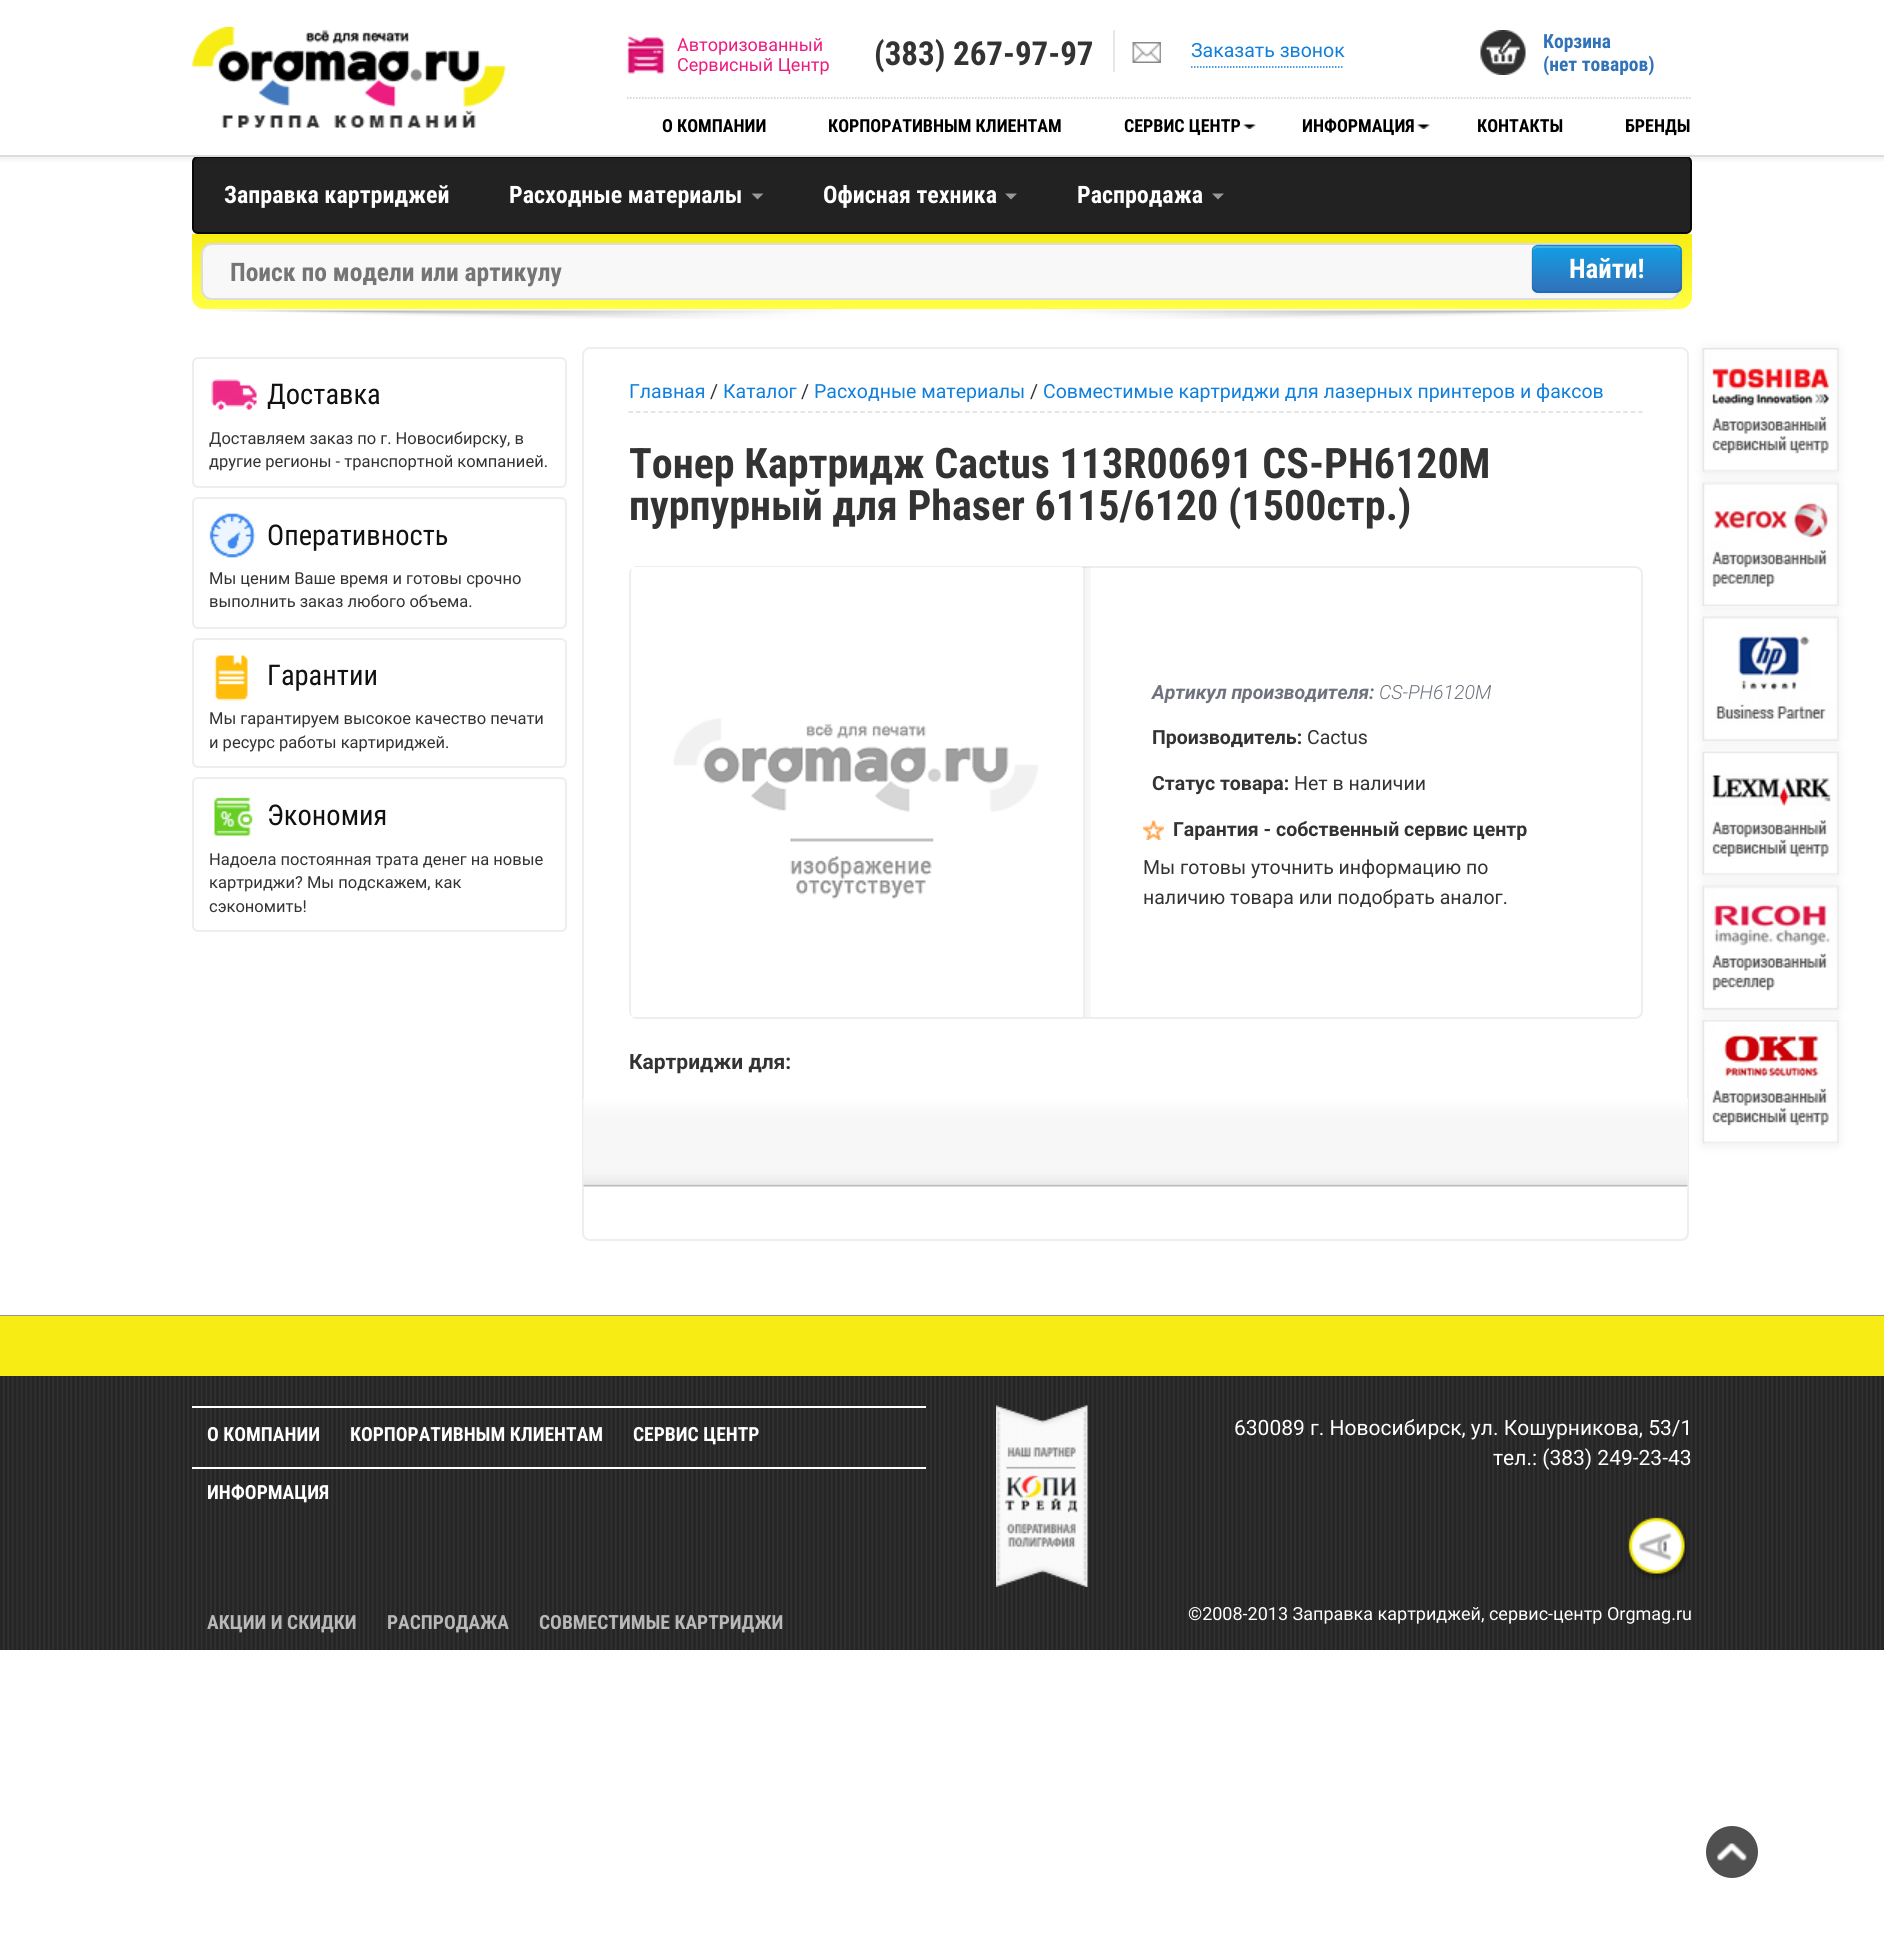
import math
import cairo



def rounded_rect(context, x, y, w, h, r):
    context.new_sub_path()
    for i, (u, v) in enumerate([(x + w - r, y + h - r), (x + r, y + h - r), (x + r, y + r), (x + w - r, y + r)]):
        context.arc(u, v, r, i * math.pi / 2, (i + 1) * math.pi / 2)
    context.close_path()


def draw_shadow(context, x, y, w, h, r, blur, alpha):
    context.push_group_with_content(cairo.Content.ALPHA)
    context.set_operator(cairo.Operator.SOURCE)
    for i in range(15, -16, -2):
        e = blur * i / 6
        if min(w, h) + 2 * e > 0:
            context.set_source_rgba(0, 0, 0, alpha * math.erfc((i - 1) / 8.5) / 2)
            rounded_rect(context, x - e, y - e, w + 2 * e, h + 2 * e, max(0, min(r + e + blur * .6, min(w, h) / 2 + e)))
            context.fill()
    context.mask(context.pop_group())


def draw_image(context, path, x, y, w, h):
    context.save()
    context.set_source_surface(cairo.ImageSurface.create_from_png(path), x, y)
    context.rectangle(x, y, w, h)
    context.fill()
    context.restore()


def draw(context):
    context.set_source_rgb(1, 1, 1)
    context.paint()
    context.set_source_rgb(34 / 255, 34 / 255, 34 / 255)
    rounded_rect(context, 193, 157, 1498, 76, 5)
    context.fill_preserve()
    context.set_source_rgb(8 / 255, 8 / 255, 8 / 255)
    context.stroke()
    context.save()
    context.rectangle(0, 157, 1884, 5)
    context.clip()
    context.set_source_rgb(0, 0, 0)
    draw_shadow(context, 0, 0, 1884, 156, 0, 6, 0.12)
    context.restore()
    context.set_source_rgb(221 / 255, 221 / 255, 221 / 255)
    context.rectangle(0, 155, 1884, 2)
    context.fill()
    draw_image(context, "images/1.png", 192, 27, 314, 101)
    context.new_path()
    context.move_to(627, 98)
    context.line_to(1692, 98)
    context.set_source_rgb(204 / 255, 204 / 255, 204 / 255)
    context.set_line_width(1.5)
    context.set_dash([1.5, 1.5])
    context.stroke()
    draw_image(context, "images/2.png", 627, 36, 38, 38)
    context.set_source_rgb(231 / 255, 231 / 255, 231 / 255)
    context.rectangle(1113, 30, 2, 42)
    context.fill()
    draw_image(context, "images/3.png", 1132, 42, 29, 21)
    context.new_path()
    context.move_to(1191, 67)
    context.line_to(1344, 67)
    context.set_source_rgb(17 / 255, 127 / 255, 220 / 255)
    context.stroke()
    draw_image(context, "images/4.png", 1480, 30, 46, 45)
    draw_image(context, "images/5.png", 1243, 124, 13, 5)
    draw_image(context, "images/6.png", 1417, 124, 13, 5)
    context.set_source_rgb(153 / 255, 153 / 255, 153 / 255)
    context.new_path()
    context.move_to(751.5, 193.5)
    context.line_to(763.5, 193.5)
    context.line_to(757.5, 199.5)
    context.close_path()
    context.fill()
    context.new_path()
    context.move_to(1005, 193.5)
    context.line_to(1017, 193.5)
    context.line_to(1011, 199.5)
    context.close_path()
    context.fill()
    context.new_path()
    context.move_to(1212, 193.5)
    context.line_to(1224, 193.5)
    context.line_to(1218, 199.5)
    context.close_path()
    context.fill()
    gradient = cairo.LinearGradient(942, 234, 942, 309)
    gradient.add_color_stop_rgba(0, 247 / 255, 236 / 255, 20 / 255, 1)
    gradient.add_color_stop_rgba(1, 1, 1, 68 / 255, 1)
    context.set_source(gradient)
    context.new_path()
    context.move_to(192, 234)
    context.line_to(1692, 234)
    context.line_to(1692, 297)
    context.curve_to(1692, 303.5, 1686.5, 309, 1680, 309)
    context.line_to(204, 309)
    context.curve_to(197.5, 309, 192, 303.5, 192, 297)
    context.close_path()
    context.fill()
    context.set_source_rgb(248 / 255, 248 / 255, 248 / 255)
    rounded_rect(context, 202, 244, 1477, 55, 10)
    context.fill_preserve()
    context.set_source_rgb(221 / 255, 221 / 255, 221 / 255)
    context.set_line_width(2)
    context.set_dash([])
    context.stroke()
    context.set_source_rgb(0, 0, 0)
    draw_shadow(context, 1532, 246, 150, 48, 6, 1.5, 0.05)
    context.set_source_rgb(26 / 255, 138 / 255, 235 / 255)
    rounded_rect(context, 1532, 245, 150, 48, 6)
    context.fill()
    context.save()
    rounded_rect(context, 1532, 245, 150, 48, 6)
    context.clip()
    gradient = cairo.LinearGradient(1607, 246, 1607, 291)
    gradient.add_color_stop_rgba(0, 17 / 255, 158 / 255, 228 / 255, 1)
    gradient.add_color_stop_rgba(1, 50 / 255, 114 / 255, 185 / 255, 1)
    context.set_source(gradient)
    context.rectangle(1532, 246, 150, 45)
    context.fill()
    context.restore()
    context.set_source_rgba(1, 1, 1, 0.2)
    context.new_path()
    context.move_to(1538, 248)
    context.line_to(1676, 248)
    context.curve_to(1678, 248, 1680, 250, 1680, 252)
    context.line_to(1680, 251)
    context.curve_to(1680, 248, 1678, 246, 1675, 246)
    context.line_to(1538, 246)
    context.curve_to(1535, 246, 1533, 248, 1533, 251)
    context.line_to(1533, 252)
    context.curve_to(1533, 250, 1535, 248, 1538, 248)
    context.close_path()
    context.fill()
    context.new_path()
    context.move_to(1679, 290)
    context.curve_to(1678, 291, 1677, 292, 1675.5, 292)
    context.line_to(1537.5, 292)
    context.curve_to(1536, 292, 1535, 291, 1534, 290)
    context.set_source_rgba(0, 0, 0, 0.25)
    context.set_line_width(1.5)
    context.stroke()
    context.new_path()
    context.move_to(1534, 290)
    context.curve_to(1531.5, 288, 1532, 283.5, 1532, 280.5)
    context.line_to(1532, 268.5)
    context.curve_to(1532, 240, 1529, 245, 1560.5, 245)
    context.line_to(1675.5, 245)
    context.curve_to(1681.5, 245.5, 1681, 252.5, 1681, 256.5)
    context.line_to(1681, 274.5)
    context.curve_to(1681, 278, 1682.5, 287, 1679, 290)
    context.set_source_rgba(0, 0, 0, 0.1)
    context.stroke()
    draw_image(context, "images/7.png", 218, 310, 1448, 9)
    rounded_rect(context, 193, 358, 373, 129, 5)
    context.set_source_rgb(238 / 255, 238 / 255, 238 / 255)
    context.set_line_width(2)
    context.stroke()
    draw_image(context, "images/8.png", 211, 379, 46, 31)
    rounded_rect(context, 193, 498, 373, 130, 5)
    context.stroke()
    draw_image(context, "images/9.png", 209, 512, 47, 46)
    rounded_rect(context, 193, 639, 373, 128, 5)
    context.stroke()
    draw_image(context, "images/10.png", 214, 655, 34, 46)
    rounded_rect(context, 193, 778, 373, 153, 5)
    context.stroke()
    draw_image(context, "images/11.png", 214, 797, 39, 39)
    rounded_rect(context, 583, 348, 1105, 892, 7)
    context.stroke()
    context.new_path()
    context.move_to(628.5, 412)
    context.line_to(1642.5, 412)
    context.set_source_rgb(221 / 255, 221 / 255, 221 / 255)
    context.set_line_width(1.5)
    context.set_dash([4.5, 2.98])
    context.stroke()
    context.set_source_rgb(0, 0, 0)
    draw_shadow(context, 1703, 348, 135, 125, 0, 6, 0.07)
    draw_shadow(context, 1703, 482, 135, 126, 0, 6, 0.07)
    draw_image(context, "images/12.png", 1702, 348, 137, 125)
    draw_shadow(context, 1703, 617, 135, 124, 0, 6, 0.07)
    draw_image(context, "images/13.png", 1702, 482, 137, 125)
    draw_shadow(context, 1703, 750, 135, 126, 0, 6, 0.07)
    draw_image(context, "images/14.png", 1702, 616, 137, 125)
    draw_shadow(context, 1703, 885, 135, 125, 0, 6, 0.07)
    draw_image(context, "images/15.png", 1702, 750, 137, 126)
    context.set_source_rgb(247 / 255, 247 / 255, 247 / 255)
    context.rectangle(1687, 1098, 1, 90)
    context.fill()
    draw_image(context, "images/21.png", 583, 1098, 1105, 90)
    context.set_source_rgb(0, 0, 0)
    draw_shadow(context, 1703, 1019, 135, 126, 0, 6, 0.07)
    draw_image(context, "images/16.png", 1702, 885, 137, 125)
    draw_image(context, "images/17.png", 1702, 1019, 137, 126)
    rounded_rect(context, 630, 567, 1012, 451, 7)
    context.set_source_rgb(238 / 255, 238 / 255, 238 / 255)
    context.set_line_width(2)
    context.set_dash([])
    context.stroke()
    draw_image(context, "images/18.png", 631, 567, 451, 450)
    draw_image(context, "images/19.png", 1083, 567, 8, 450)
    draw_image(context, "images/20.png", 1143, 820, 21, 20)
    context.set_source_rgb(80 / 255, 80 / 255, 80 / 255)
    context.arc(1732, 1852, 26, 0, 2 * math.pi)
    context.fill()
    draw_image(context, "images/22.png", 1717, 1843, 30, 18)
    draw_image(context, "images/23.png", 0, 1315, 1884, 335)
    context.set_source_rgb(247 / 255, 236 / 255, 20 / 255)
    context.rectangle(0, 1316, 1884, 60)
    context.fill()
    context.set_source_rgb(1, 1, 1)
    context.rectangle(192, 1406, 734, 2)
    context.fill()
    context.rectangle(192, 1467, 734, 2)
    context.fill()
    draw_image(context, "images/24.png", 996, 1405, 92, 182)
    draw_image(context, "images/25.png", 1628, 1517, 60, 63)
    context.select_font_face("Roboto")
    context.set_font_size(18)
    context.set_source_rgb(237 / 255, 28 / 255, 127 / 255)
    context.move_to(677, 51)
    context.show_text("Авторизованный")
    context.move_to(677, 71)
    context.show_text("Сервисный Центр")
    context.select_font_face("Roboto Condensed", cairo.FontSlant.NORMAL, cairo.FontWeight.BOLD)
    context.set_font_size(33)
    context.set_source_rgb(51 / 255, 51 / 255, 51 / 255)
    context.move_to(874, 65)
    context.show_text("(383) 267-97-97")
    context.select_font_face("Roboto")
    context.set_font_size(19.5)
    context.set_source_rgb(17 / 255, 127 / 255, 220 / 255)
    context.move_to(1191, 57)
    context.show_text("Заказать звонок")
    context.select_font_face("Roboto Condensed", cairo.FontSlant.NORMAL, cairo.FontWeight.BOLD)
    context.set_source_rgb(50 / 255, 114 / 255, 185 / 255)
    context.move_to(1543, 48)
    context.show_text("Корзина")
    context.move_to(1543, 71)
    context.show_text("(нет товаров)")
    context.set_font_size(18)
    context.set_source_rgb(0, 0, 0)
    context.move_to(662, 132)
    context.show_text("О КОМПАНИИ")
    context.move_to(828, 132)
    context.show_text("КОРПОРАТИВНЫМ КЛИЕНТАМ")
    context.move_to(1124, 132)
    context.show_text("СЕРВИС ЦЕНТР")
    context.move_to(1302, 132)
    context.show_text("ИНФОРМАЦИЯ")
    context.move_to(1477, 132)
    context.show_text("КОНТАКТЫ")
    context.move_to(1625, 132)
    context.show_text("БРЕНДЫ")
    context.set_font_size(24)
    context.set_source_rgb(1, 1, 1)
    context.move_to(224, 203)
    context.show_text("Заправка картриджей")
    context.move_to(509, 203)
    context.show_text("Расходные материалы")
    context.move_to(823, 203)
    context.show_text("Офисная техника")
    context.move_to(1077, 203)
    context.show_text("Распродажа")
    context.set_font_size(25.5)
    context.set_source_rgb(117 / 255, 117 / 255, 117 / 255)
    context.move_to(230, 281)
    context.show_text("Поиск по модели или артикулу")
    context.set_font_size(27)
    context.set_source_rgb(1, 1, 1)
    context.move_to(1569, 278)
    context.show_text("Найти!")
    context.select_font_face("Roboto Condensed")
    context.set_font_size(28.5)
    context.set_source_rgb(17 / 255, 17 / 255, 17 / 255)
    context.move_to(267, 404)
    context.show_text("Доставка")
    context.select_font_face("Roboto")
    context.set_font_size(16.5)
    context.set_source_rgb(51 / 255, 51 / 255, 51 / 255)
    context.move_to(209, 444)
    context.show_text("Доставляем заказ по г. Новосибирску, в")
    context.move_to(209, 467)
    context.show_text("другие регионы - транспортной компанией.")
    context.select_font_face("Roboto Condensed")
    context.set_font_size(28.5)
    context.set_source_rgb(17 / 255, 17 / 255, 17 / 255)
    context.move_to(267, 545)
    context.show_text("Оперативность")
    context.select_font_face("Roboto")
    context.set_font_size(16.5)
    context.set_source_rgb(51 / 255, 51 / 255, 51 / 255)
    context.move_to(209, 584)
    context.show_text("Мы ценим Ваше время и готовы срочно")
    context.move_to(209, 607)
    context.show_text("выполнить заказ любого объема.")
    context.select_font_face("Roboto Condensed")
    context.set_font_size(28.5)
    context.set_source_rgb(17 / 255, 17 / 255, 17 / 255)
    context.move_to(267, 685)
    context.show_text("Гарантии")
    context.select_font_face("Roboto")
    context.set_font_size(16.5)
    context.set_source_rgb(51 / 255, 51 / 255, 51 / 255)
    context.move_to(209, 724)
    context.show_text("Мы гарантируем высокое качество печати")
    context.move_to(209, 748)
    context.show_text("и ресурс работы картириджей.")
    context.select_font_face("Roboto Condensed")
    context.set_font_size(28.5)
    context.set_source_rgb(17 / 255, 17 / 255, 17 / 255)
    context.move_to(267, 825)
    context.show_text("Экономия")
    context.select_font_face("Roboto")
    context.set_font_size(16.5)
    context.set_source_rgb(51 / 255, 51 / 255, 51 / 255)
    context.move_to(209, 865)
    context.show_text("Надоела постоянная трата денег на новые")
    context.move_to(209, 888)
    context.show_text("картриджи? Мы подскажем, как")
    context.move_to(209, 912)
    context.show_text("сэкономить!")
    context.set_font_size(19.5)
    context.set_source_rgb(17 / 255, 127 / 255, 220 / 255)
    context.move_to(629, 398)
    context.show_text("Главная")
    context.set_source_rgb(51 / 255, 51 / 255, 51 / 255)
    context.move_to(710, 398)
    context.show_text("/")
    context.set_source_rgb(17 / 255, 127 / 255, 220 / 255)
    context.move_to(723, 398)
    context.show_text("Каталог")
    context.set_source_rgb(51 / 255, 51 / 255, 51 / 255)
    context.move_to(801, 398)
    context.show_text("/")
    context.set_source_rgb(17 / 255, 127 / 255, 220 / 255)
    context.move_to(814, 398)
    context.show_text("Расходные материалы")
    context.set_source_rgb(51 / 255, 51 / 255, 51 / 255)
    context.move_to(1030, 398)
    context.show_text("/")
    context.set_source_rgb(17 / 255, 127 / 255, 220 / 255)
    context.move_to(1043, 398)
    context.show_text("Совместимые картриджи для лазерных принтеров и факсов")
    context.select_font_face("Roboto Condensed", cairo.FontSlant.NORMAL, cairo.FontWeight.BOLD)
    context.set_font_size(42)
    context.set_source_rgb(51 / 255, 51 / 255, 51 / 255)
    context.move_to(629, 478)
    context.show_text("Тонер Картридж Cactus 113R00691 CS-PH6120M")
    context.move_to(629, 520)
    context.show_text("пурпурный для Phaser 6115/6120 (1500стр.)")
    context.select_font_face("Roboto", cairo.FontSlant.ITALIC, cairo.FontWeight.BOLD)
    context.set_font_size(19.5)
    context.set_source_rgb(111 / 255, 115 / 255, 127 / 255)
    context.move_to(1152, 699)
    context.show_text("Артикул производителя:")
    context.select_font_face("Roboto Light", cairo.FontSlant.ITALIC)
    context.move_to(1379, 699)
    context.show_text("CS-PH6120M")
    context.select_font_face("Roboto", cairo.FontSlant.NORMAL, cairo.FontWeight.BOLD)
    context.set_source_rgb(51 / 255, 51 / 255, 51 / 255)
    context.move_to(1152, 744)
    context.show_text("Производитель:")
    context.select_font_face("Roboto")
    context.move_to(1307, 744)
    context.show_text("Cactus")
    context.select_font_face("Roboto", cairo.FontSlant.NORMAL, cairo.FontWeight.BOLD)
    context.move_to(1152, 790)
    context.show_text("Статус товара:")
    context.select_font_face("Roboto")
    context.move_to(1294, 790)
    context.show_text("Нет в наличии")
    context.select_font_face("Roboto", cairo.FontSlant.NORMAL, cairo.FontWeight.BOLD)
    context.move_to(1173, 836)
    context.show_text("Гарантия - собственный сервис центр")
    context.select_font_face("Roboto")
    context.move_to(1143, 874)
    context.show_text("Мы готовы уточнить информацию по")
    context.move_to(1143, 904)
    context.show_text("наличию товара или подобрать аналог.")
    context.select_font_face("Roboto", cairo.FontSlant.NORMAL, cairo.FontWeight.BOLD)
    context.set_font_size(21)
    context.move_to(629, 1069)
    context.show_text("Картриджи для:")
    context.select_font_face("Roboto Condensed", cairo.FontSlant.NORMAL, cairo.FontWeight.BOLD)
    context.set_font_size(19.5)
    context.set_source_rgb(1, 1, 1)
    context.move_to(207, 1441)
    context.show_text("О КОМПАНИИ")
    context.move_to(350, 1441)
    context.show_text("КОРПОРАТИВНЫМ КЛИЕНТАМ")
    context.move_to(633, 1441)
    context.show_text("СЕРВИС ЦЕНТР")
    context.move_to(207, 1499)
    context.show_text("ИНФОРМАЦИЯ")
    context.select_font_face("Roboto")
    context.set_font_size(21)
    context.move_to(1234, 1435)
    context.show_text("630089 г. Новосибирск, ул. Кошурникова, 53/1")
    context.move_to(1493, 1465)
    context.show_text("тел.: (383) 249-23-43")
    context.select_font_face("Roboto Condensed", cairo.FontSlant.NORMAL, cairo.FontWeight.BOLD)
    context.set_font_size(19.5)
    context.set_source_rgb(184 / 255, 184 / 255, 184 / 255)
    context.move_to(207, 1629)
    context.show_text("АКЦИИ И СКИДКИ")
    context.move_to(387, 1629)
    context.show_text("РАСПРОДАЖА")
    context.move_to(539, 1629)
    context.show_text("СОВМЕСТИМЫЕ КАРТРИДЖИ")
    context.select_font_face("Roboto")
    context.set_font_size(18)
    context.set_source_rgb(1, 1, 1)
    context.move_to(1188, 1620)
    context.show_text("©2008-2013 Заправка картриджей, cервис-центр Orgmag.ru")


surface = cairo.ImageSurface(cairo.Format.RGB24, 1884, 1945)
context = cairo.Context(surface)
options = cairo.FontOptions()
options.set_hint_metrics(cairo.HintMetrics.OFF)
options.set_hint_style(cairo.HintStyle.NONE)
context.set_font_options(options)
context.set_miter_limit(4)
draw(context)
surface.write_to_png("out.png")
